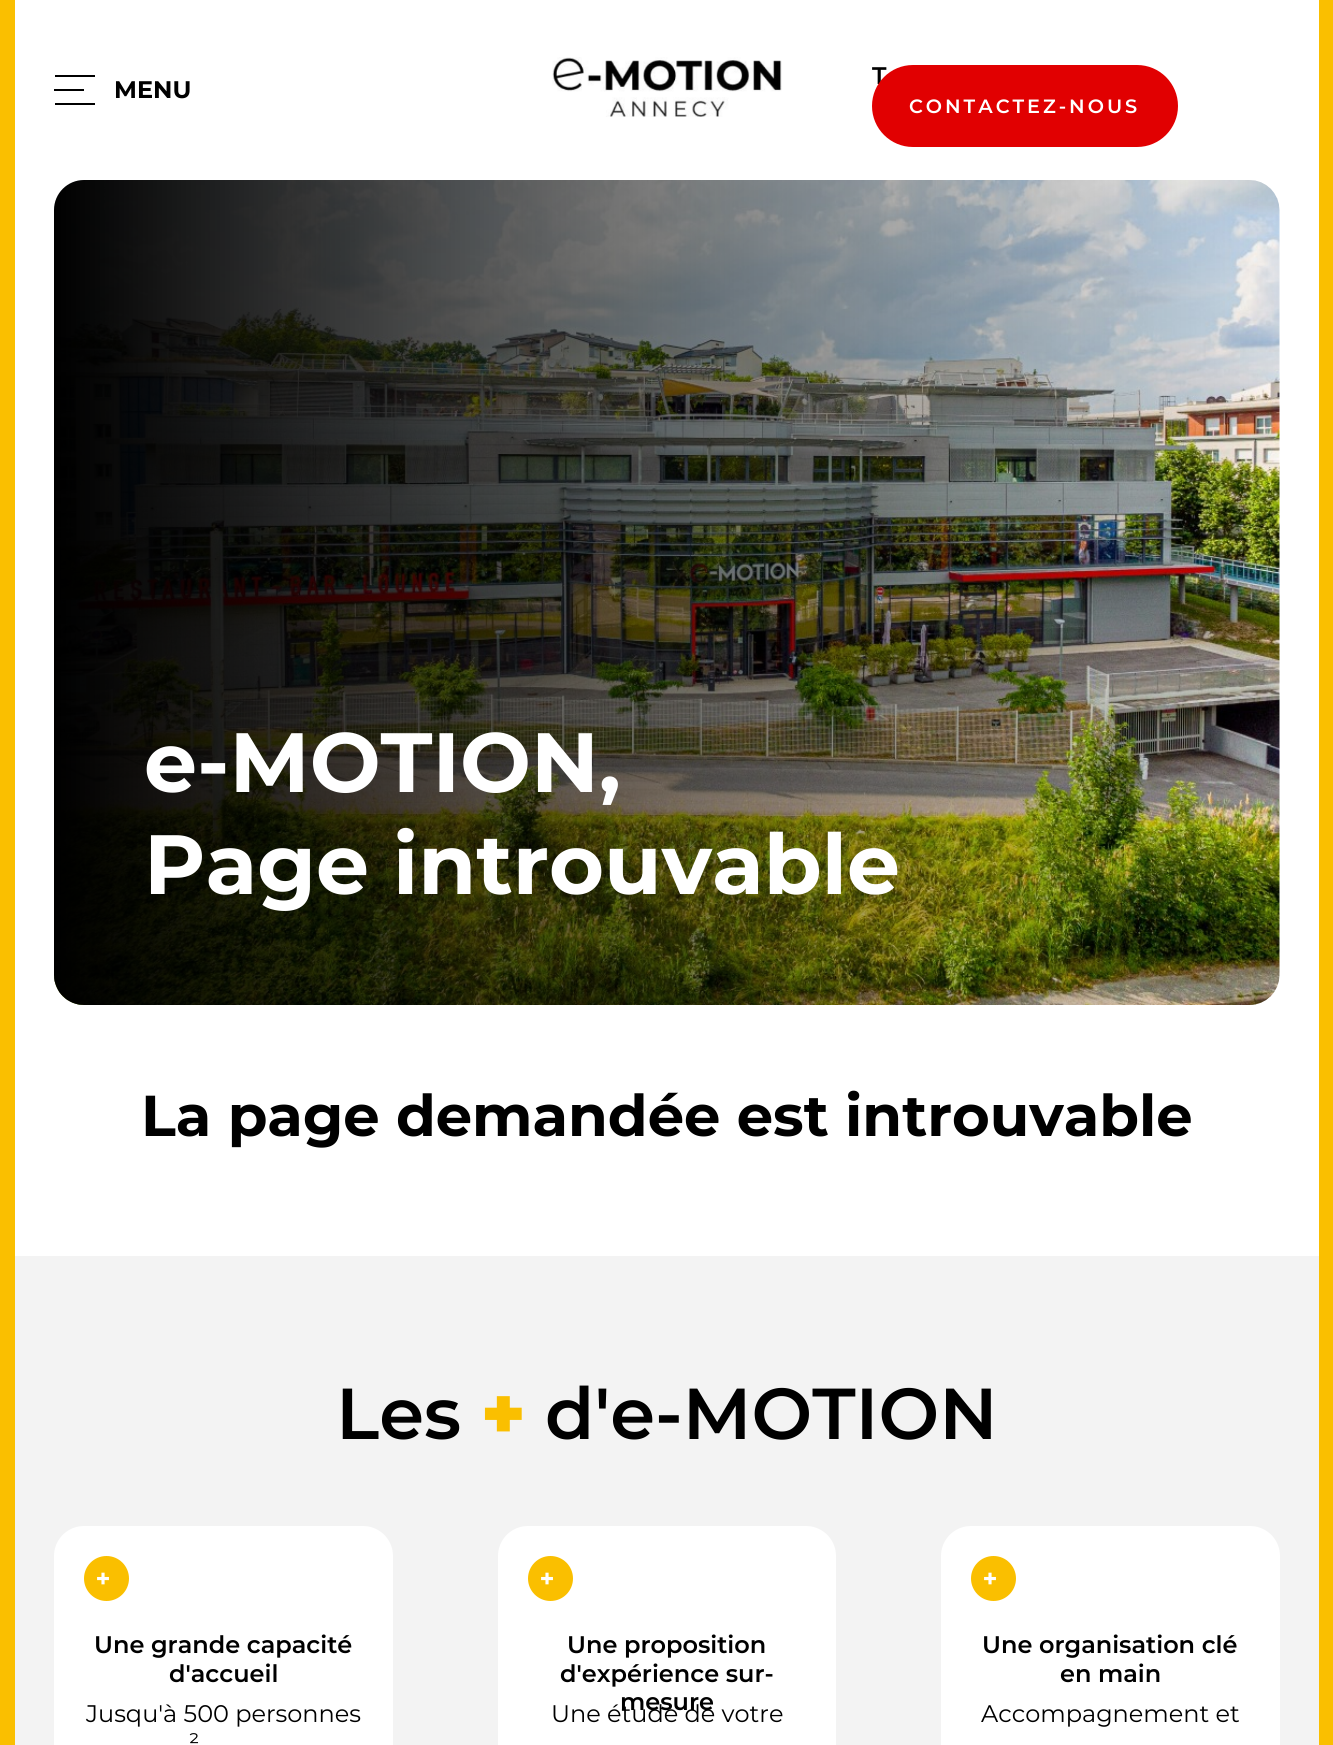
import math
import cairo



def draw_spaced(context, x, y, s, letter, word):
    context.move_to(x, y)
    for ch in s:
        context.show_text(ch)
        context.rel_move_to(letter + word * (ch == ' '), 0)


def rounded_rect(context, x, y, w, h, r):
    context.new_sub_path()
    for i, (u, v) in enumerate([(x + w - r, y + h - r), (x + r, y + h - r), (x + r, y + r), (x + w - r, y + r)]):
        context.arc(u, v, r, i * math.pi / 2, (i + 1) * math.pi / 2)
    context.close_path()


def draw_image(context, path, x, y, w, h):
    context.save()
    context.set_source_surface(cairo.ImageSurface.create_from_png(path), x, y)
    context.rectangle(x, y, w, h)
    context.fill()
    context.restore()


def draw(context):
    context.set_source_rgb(1, 1, 1)
    context.paint()
    context.set_source_rgb(0, 0, 0)
    context.rectangle(55, 75, 40, 2)
    context.fill()
    context.rectangle(54, 89, 30, 2)
    context.fill()
    context.rectangle(55, 103, 40, 2)
    context.fill()
    draw_image(context, "images/1.png", 552, 57, 230, 60)
    context.set_source_rgb(250 / 255, 191 / 255, 0)
    context.rectangle(0, 0, 15, 1745)
    context.fill()
    draw_image(context, "images/2.png", 54, 180, 1226, 825)
    gradient = cairo.LinearGradient(54, 593, 1280, 593)
    gradient.add_color_stop_rgba(0, 0, 0, 0, 1)
    gradient.add_color_stop_rgba(1, 0, 0, 0, 0)
    context.set_source(gradient)
    rounded_rect(context, 54, 180, 1226, 825, 30)
    context.fill()
    context.set_source_rgb(250 / 255, 191 / 255, 0)
    context.rectangle(1319, 0, 14, 1745)
    context.fill()
    context.set_source_rgb(243 / 255, 243 / 255, 243 / 255)
    context.rectangle(15, 1256, 1304, 489)
    context.fill()
    context.set_source_rgb(1, 1, 1)
    rounded_rect(context, 54, 1526, 339, 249, 30)
    context.fill()
    context.set_source_rgb(250 / 255, 191 / 255, 0)
    context.arc(106.5, 1578.5, 22.5, 0, 2 * math.pi)
    context.fill()
    context.set_source_rgb(1, 1, 1)
    rounded_rect(context, 498, 1526, 338, 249, 30)
    context.fill()
    context.set_source_rgb(250 / 255, 191 / 255, 0)
    context.arc(550.5, 1578.5, 22.5, 0, 2 * math.pi)
    context.fill()
    context.set_source_rgb(1, 1, 1)
    rounded_rect(context, 941, 1526, 339, 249, 30)
    context.fill()
    context.set_source_rgb(250 / 255, 191 / 255, 0)
    context.arc(993.5, 1578.5, 22.5, 0, 2 * math.pi)
    context.fill()
    context.select_font_face("Montserrat", cairo.FontSlant.NORMAL, cairo.FontWeight.BOLD)
    context.set_font_size(24)
    context.set_source_rgb(0, 0, 0)
    context.move_to(114, 98)
    context.show_text("MENU")
    context.select_font_face("Montserrat SemiBold")
    context.move_to(872, 84)
    context.show_text("T")
    context.set_source_rgb(225 / 255, 0, 1 / 255)
    rounded_rect(context, 872, 65, 306, 82, 41)
    context.fill()
    context.set_font_size(19.25)
    context.set_source_rgb(1, 1, 1)
    draw_spaced(context, 909, 113, "CONTACTEZ-NOUS", 3, 0)
    context.select_font_face("Montserrat", cairo.FontSlant.NORMAL, cairo.FontWeight.BOLD)
    context.set_font_size(84)
    context.move_to(144, 792)
    context.show_text("e-MOTION,")
    context.move_to(144, 894)
    context.show_text("Page introuvable")
    context.set_font_size(57.6)
    context.set_source_rgb(0, 0, 0)
    context.move_to(141, 1136)
    context.show_text("La page demandée est introuvable")
    context.select_font_face("Montserrat SemiBold")
    context.set_font_size(72)
    context.move_to(336, 1439)
    context.show_text("Les")
    context.select_font_face("Montserrat Black")
    context.set_source_rgb(250 / 255, 191 / 255, 0)
    context.move_to(481, 1439)
    context.show_text("+")
    context.select_font_face("Montserrat SemiBold")
    context.set_source_rgb(0, 0, 0)
    context.move_to(545, 1439)
    context.show_text("d'e-MOTION")
    context.select_font_face("Noto Sans Black")
    context.set_font_size(24)
    context.set_source_rgb(1, 1, 1)
    context.move_to(96, 1587)
    context.show_text("+")
    context.select_font_face("Montserrat SemiBold")
    context.set_source_rgb(0, 0, 0)
    context.move_to(94, 1653)
    context.show_text("Une grande capacité")
    context.move_to(169, 1682)
    context.show_text("d'accueil")
    context.select_font_face("Montserrat")
    context.move_to(86, 1722)
    context.show_text("Jusqu'à 500 personnes")
    context.move_to(189, 1751)
    context.show_text("²")
    context.select_font_face("Noto Sans Black")
    context.set_source_rgb(1, 1, 1)
    context.move_to(540, 1587)
    context.show_text("+")
    context.select_font_face("Montserrat SemiBold")
    context.set_source_rgb(0, 0, 0)
    context.move_to(567, 1653)
    context.show_text("Une proposition")
    context.move_to(560, 1682)
    context.show_text("d'expérience sur-")
    context.move_to(620, 1710)
    context.show_text("mesure")
    context.select_font_face("Montserrat")
    context.move_to(551, 1722)
    context.show_text("Une étude de votre")
    context.select_font_face("Noto Sans Black")
    context.set_source_rgb(1, 1, 1)
    context.move_to(983, 1587)
    context.show_text("+")
    context.select_font_face("Montserrat SemiBold")
    context.set_source_rgb(0, 0, 0)
    context.move_to(982, 1653)
    context.show_text("Une organisation clé")
    context.move_to(1060, 1682)
    context.show_text("en main")
    context.select_font_face("Montserrat")
    context.move_to(981, 1722)
    context.show_text("Accompagnement et")


surface = cairo.ImageSurface(cairo.Format.RGB24, 1333, 1745)
context = cairo.Context(surface)
options = cairo.FontOptions()
options.set_hint_metrics(cairo.HintMetrics.OFF)
options.set_hint_style(cairo.HintStyle.NONE)
context.set_font_options(options)
context.set_miter_limit(4)
draw(context)
surface.write_to_png("out.png")
